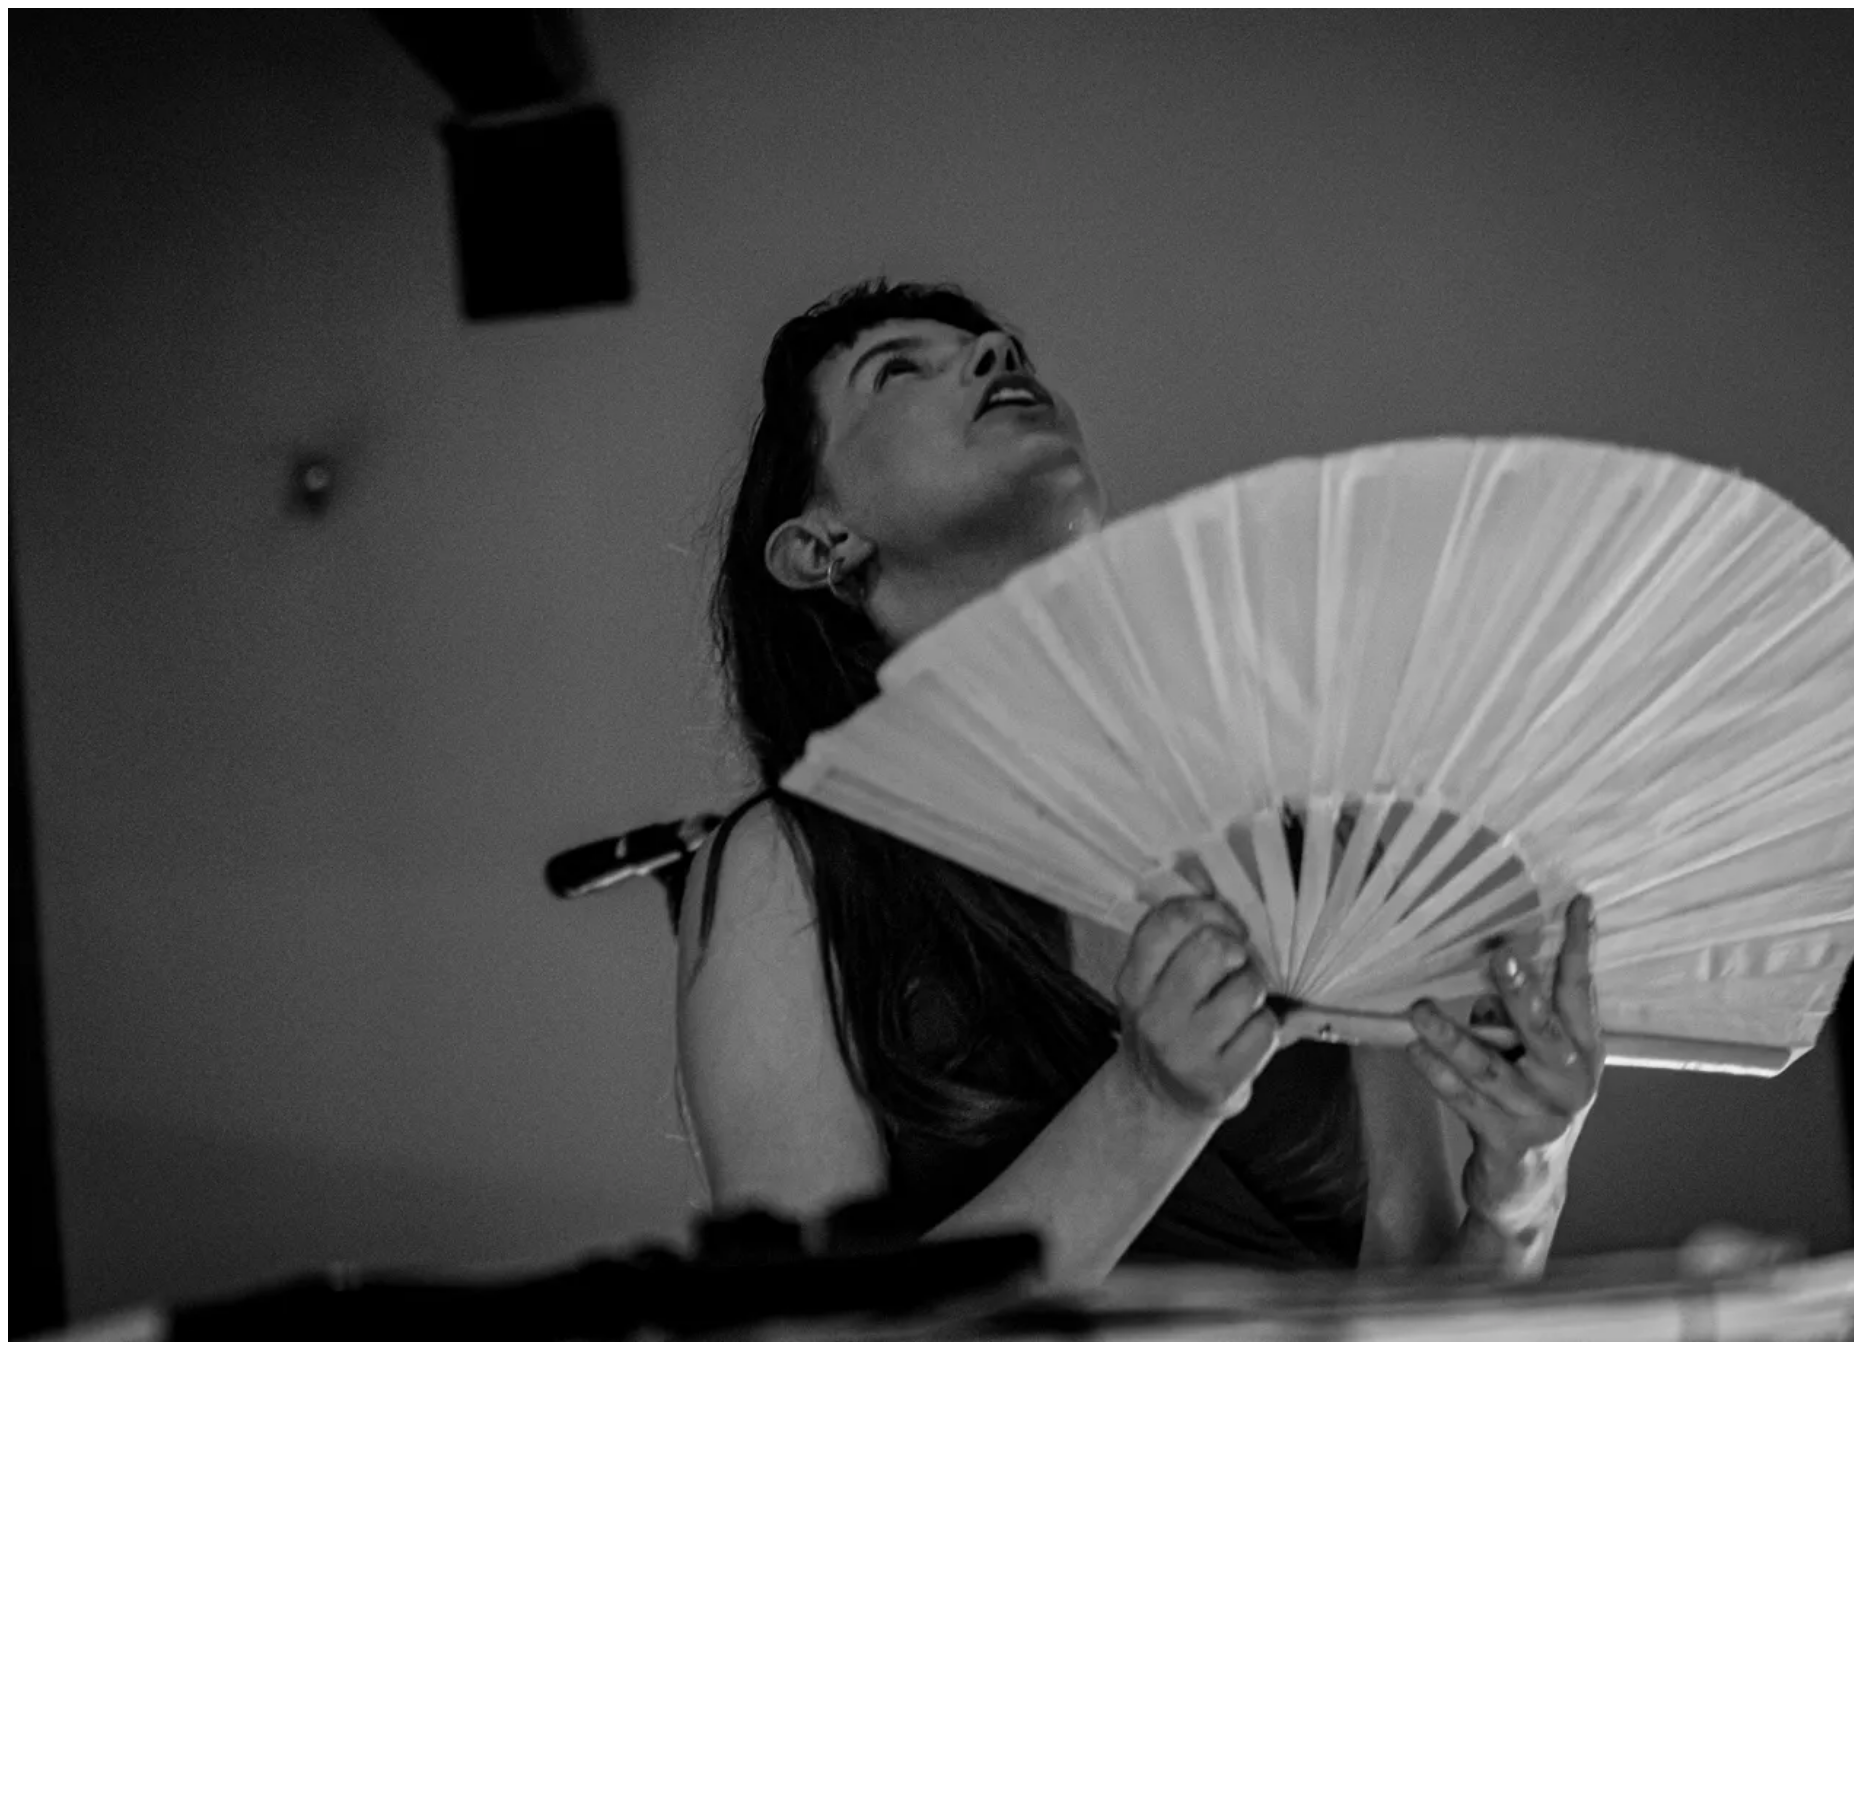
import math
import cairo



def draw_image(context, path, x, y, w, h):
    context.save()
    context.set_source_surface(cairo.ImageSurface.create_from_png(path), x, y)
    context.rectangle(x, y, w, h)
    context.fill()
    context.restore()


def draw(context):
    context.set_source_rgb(1, 1, 1)
    context.paint()
    draw_image(context, "images/1.png", 8, 8, 1846, 1334)


surface = cairo.ImageSurface(cairo.Format.RGB24, 1854, 1805)
context = cairo.Context(surface)
options = cairo.FontOptions()
options.set_hint_metrics(cairo.HintMetrics.OFF)
options.set_hint_style(cairo.HintStyle.NONE)
context.set_font_options(options)
context.set_miter_limit(4)
draw(context)
surface.write_to_png("out.png")
